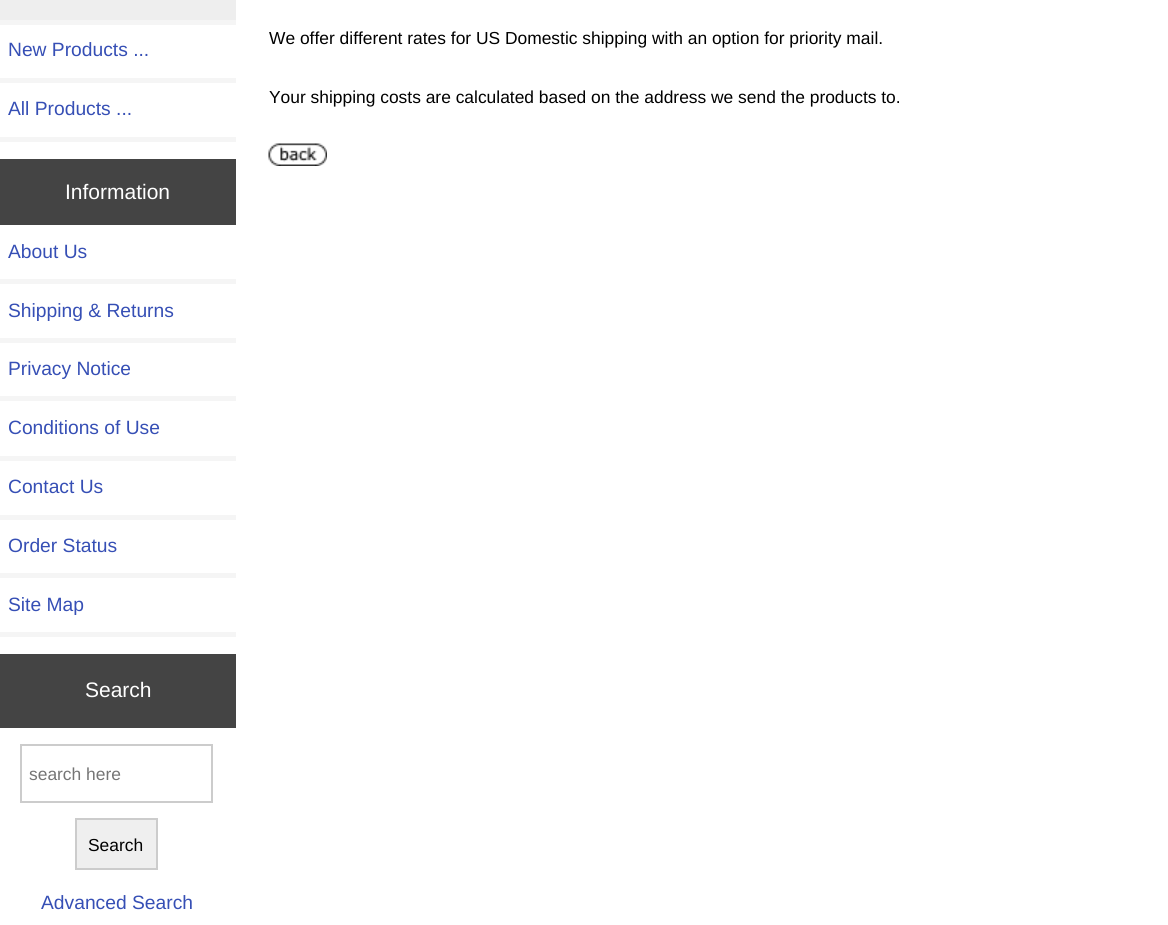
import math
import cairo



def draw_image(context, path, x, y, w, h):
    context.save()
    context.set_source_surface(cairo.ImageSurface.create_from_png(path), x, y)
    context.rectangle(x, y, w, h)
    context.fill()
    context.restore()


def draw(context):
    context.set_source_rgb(1, 1, 1)
    context.paint()
    context.set_source_rgb(238 / 255, 238 / 255, 238 / 255)
    context.rectangle(0, 0, 236, 20)
    context.fill()
    context.set_source_rgb(245 / 255, 245 / 255, 245 / 255)
    context.rectangle(0, 20, 236, 5)
    context.fill()
    context.rectangle(0, 78, 236, 5)
    context.fill()
    context.rectangle(0, 137, 236, 5)
    context.fill()
    context.set_source_rgb(68 / 255, 68 / 255, 68 / 255)
    context.rectangle(0, 159, 236, 66)
    context.fill()
    context.set_source_rgb(245 / 255, 245 / 255, 245 / 255)
    context.rectangle(0, 279, 236, 5)
    context.fill()
    context.rectangle(0, 338, 236, 5)
    context.fill()
    context.rectangle(0, 396, 236, 5)
    context.fill()
    context.rectangle(0, 456, 236, 5)
    context.fill()
    context.rectangle(0, 515, 236, 5)
    context.fill()
    context.rectangle(0, 573, 236, 5)
    context.fill()
    context.rectangle(0, 632, 236, 5)
    context.fill()
    context.set_source_rgb(68 / 255, 68 / 255, 68 / 255)
    context.rectangle(0, 654, 236, 74)
    context.fill()
    context.rectangle(21, 745, 191, 57)
    context.set_source_rgb(204 / 255, 204 / 255, 204 / 255)
    context.stroke()
    context.set_source_rgb(239 / 255, 239 / 255, 239 / 255)
    context.rectangle(76, 819, 81, 50)
    context.fill_preserve()
    context.set_source_rgb(204 / 255, 204 / 255, 204 / 255)
    context.stroke()
    draw_image(context, "images/1.png", 268, 143, 59, 23)
    context.select_font_face("Liberation Sans")
    context.set_font_size(19.25)
    context.set_source_rgb(54 / 255, 79 / 255, 181 / 255)
    context.move_to(8, 56)
    context.show_text("New Products ...")
    context.move_to(8, 115)
    context.show_text("All Products ...")
    context.set_font_size(21)
    context.set_source_rgb(1, 1, 1)
    context.move_to(65, 199)
    context.show_text("Information")
    context.set_font_size(19.25)
    context.set_source_rgb(54 / 255, 79 / 255, 181 / 255)
    context.move_to(8, 258)
    context.show_text("About Us")
    context.move_to(8, 317)
    context.show_text("Shipping & Returns")
    context.move_to(8, 375)
    context.show_text("Privacy Notice")
    context.move_to(8, 434)
    context.show_text("Conditions of Use")
    context.move_to(8, 493)
    context.show_text("Contact Us")
    context.move_to(8, 552)
    context.show_text("Order Status")
    context.move_to(8, 611)
    context.show_text("Site Map")
    context.set_font_size(21)
    context.set_source_rgb(1, 1, 1)
    context.move_to(85, 697)
    context.show_text("Search")
    context.set_font_size(17.4)
    context.set_source_rgb(117 / 255, 117 / 255, 117 / 255)
    context.move_to(29, 780)
    context.show_text("search here")
    context.set_source_rgb(0, 0, 0)
    context.move_to(88, 851)
    context.show_text("Search")
    context.set_font_size(19.25)
    context.set_source_rgb(54 / 255, 79 / 255, 181 / 255)
    context.move_to(41, 909)
    context.show_text("Advanced Search")
    context.set_font_size(17.4)
    context.set_source_rgb(0, 0, 0)
    context.move_to(269, 44)
    context.show_text("We offer different rates for US Domestic shipping with an option for priority mail.")
    context.move_to(269, 103)
    context.show_text("Your shipping costs are calculated based on the address we send the products to.")


surface = cairo.ImageSurface(cairo.Format.RGB24, 1168, 925)
context = cairo.Context(surface)
options = cairo.FontOptions()
options.set_hint_metrics(cairo.HintMetrics.OFF)
options.set_hint_style(cairo.HintStyle.NONE)
context.set_font_options(options)
context.set_miter_limit(4)
draw(context)
surface.write_to_png("out.png")
